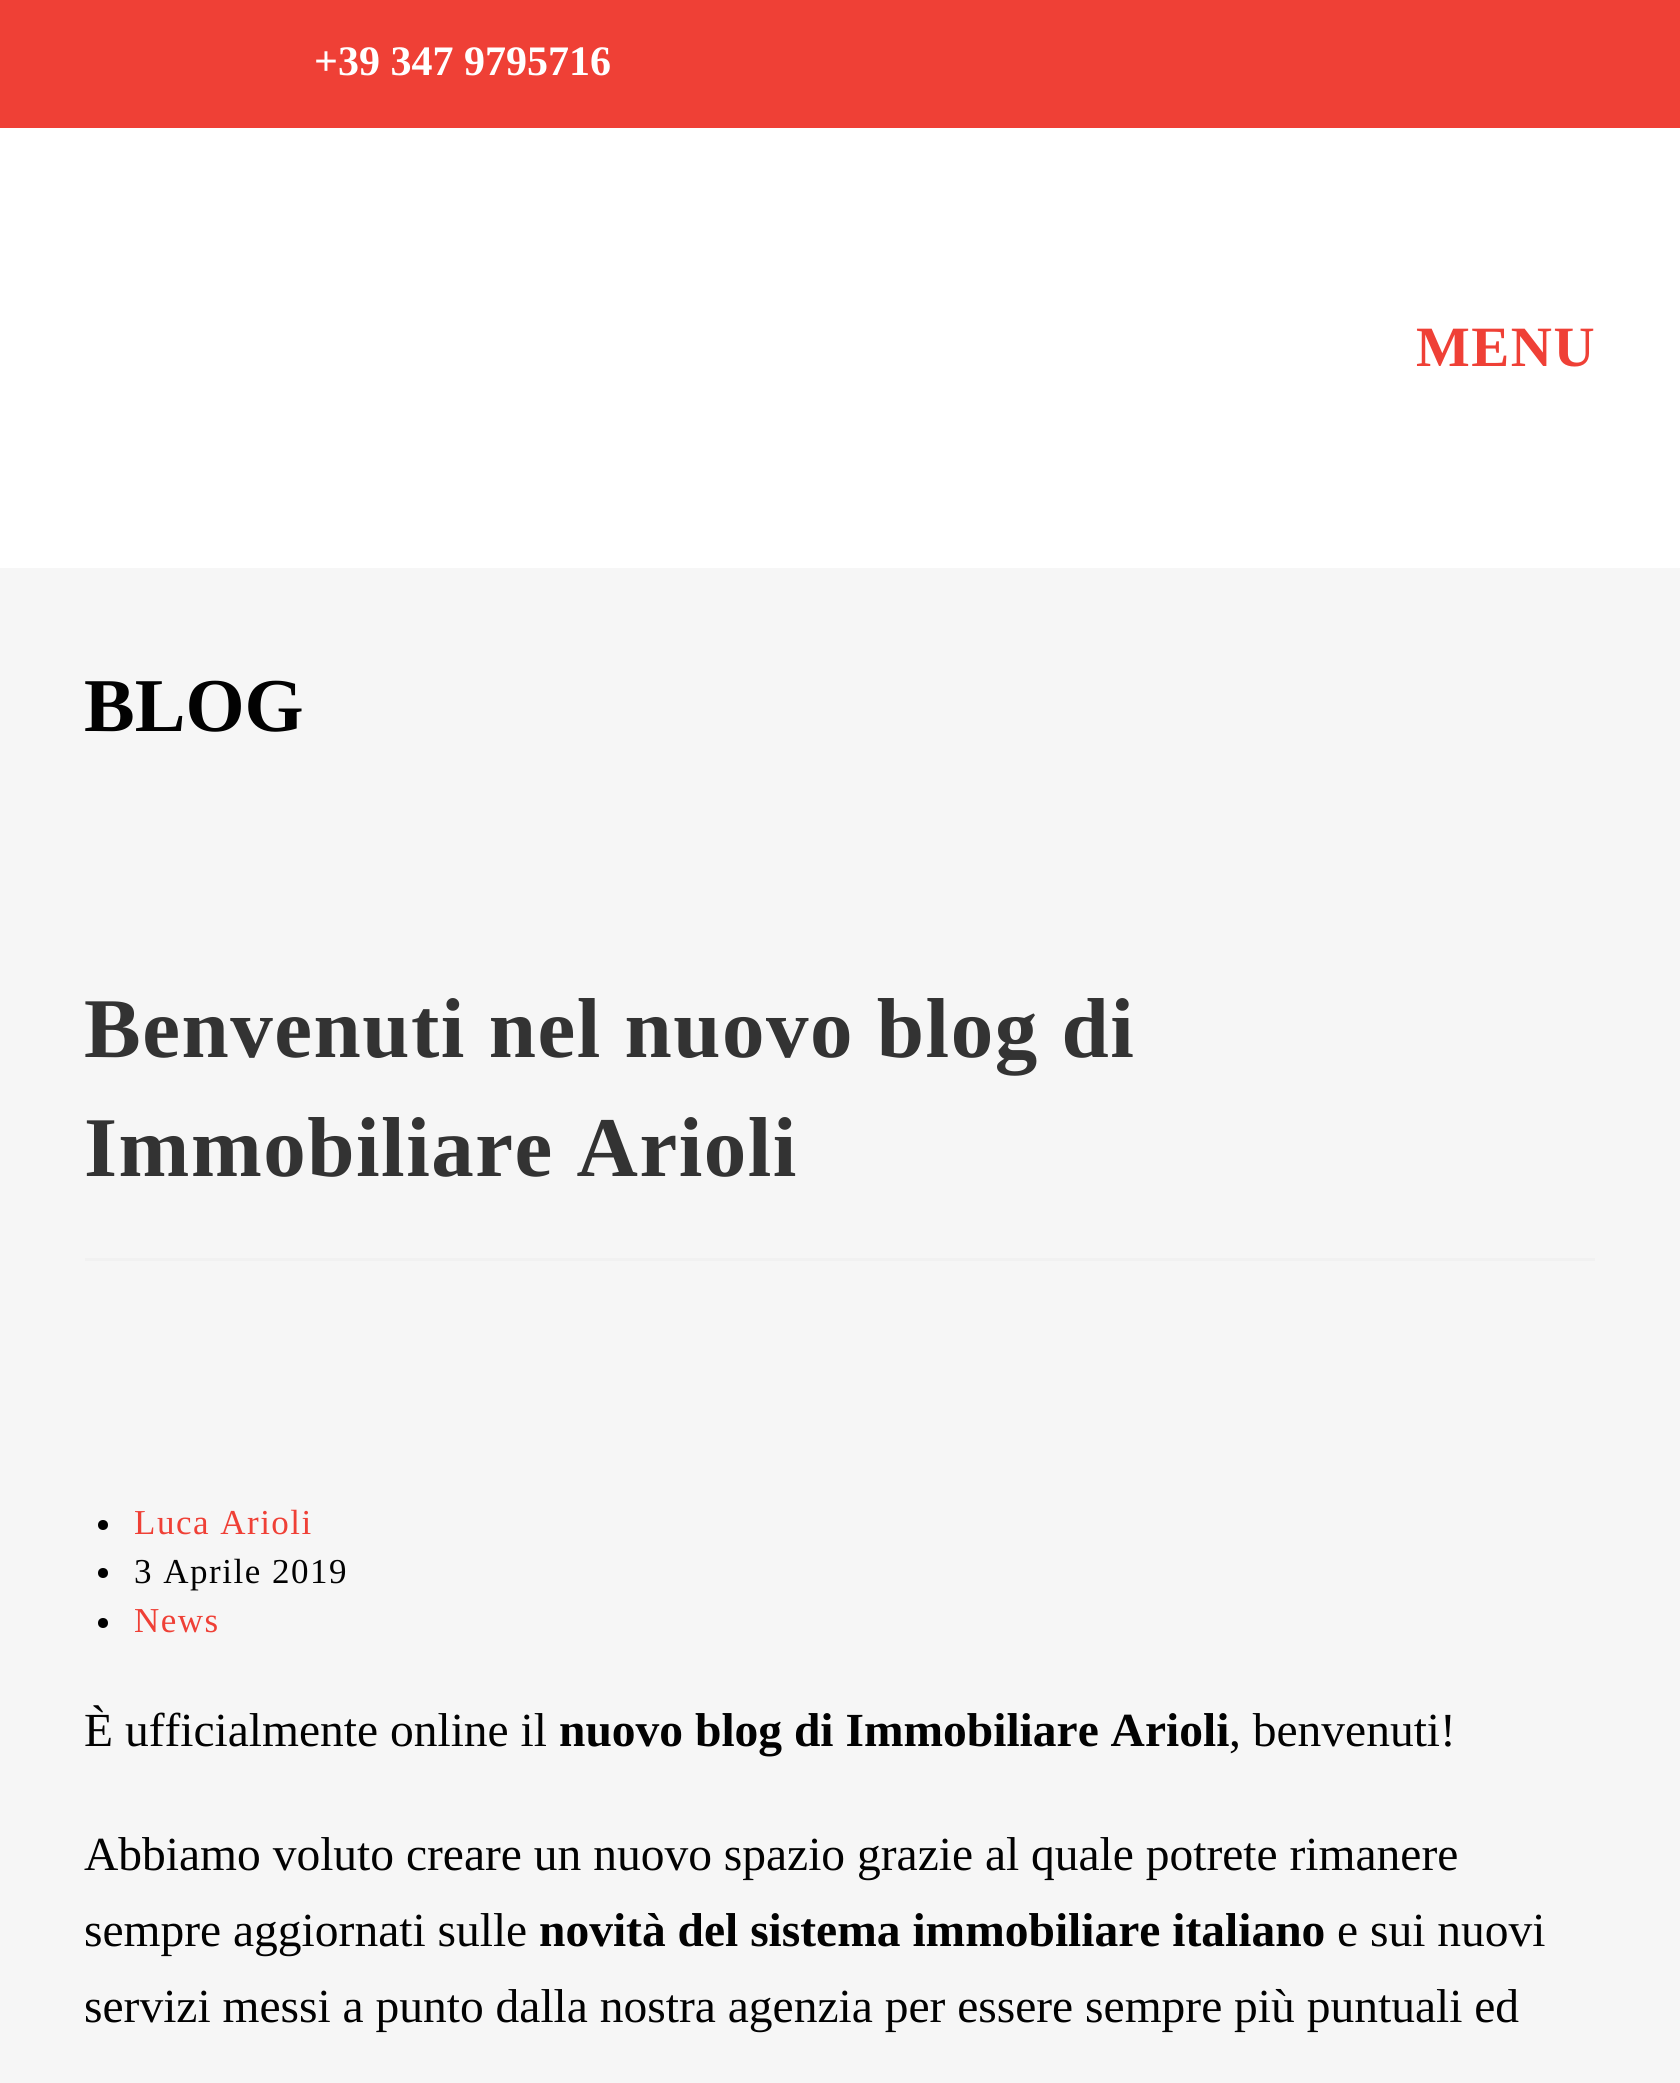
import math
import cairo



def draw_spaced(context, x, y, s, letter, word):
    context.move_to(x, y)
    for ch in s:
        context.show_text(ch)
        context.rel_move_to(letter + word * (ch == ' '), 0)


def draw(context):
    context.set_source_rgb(246 / 255, 246 / 255, 246 / 255)
    context.paint()
    context.set_source_rgb(239 / 255, 64 / 255, 54 / 255)
    context.rectangle(0, 0, 1680, 128)
    context.fill()
    context.set_source_rgb(1, 1, 1)
    context.rectangle(0, 128, 1680, 440)
    context.fill()
    context.set_source_rgb(241 / 255, 241 / 255, 241 / 255)
    context.rectangle(85, 1258, 1510, 3)
    context.fill()
    context.set_source_rgb(0, 0, 0)
    context.arc(103, 1525, 5, 0, 2 * math.pi)
    context.fill()
    context.arc(103, 1573, 5, 0, 2 * math.pi)
    context.fill()
    context.arc(103, 1623, 5, 0, 2 * math.pi)
    context.fill()
    context.select_font_face("Liberation Serif", cairo.FontSlant.NORMAL, cairo.FontWeight.BOLD)
    context.set_font_size(42)
    context.set_source_rgb(1, 1, 1)
    context.move_to(314, 75)
    context.show_text("+39 347 9795716")
    context.set_font_size(57)
    context.set_source_rgb(239 / 255, 64 / 255, 54 / 255)
    draw_spaced(context, 1416, 366, "MENU", 1.5, 0)
    context.set_font_size(76)
    context.set_source_rgb(2 / 255, 2 / 255, 2 / 255)
    context.move_to(84, 731)
    context.show_text("BLOG")
    context.set_font_size(85)
    context.set_source_rgb(51 / 255, 51 / 255, 51 / 255)
    draw_spaced(context, 84, 1057, "Benvenuti nel nuovo blog di", 1.5, 0)
    draw_spaced(context, 84, 1176, "Immobiliare Arioli", 1.5, 0)
    context.select_font_face("Liberation Serif")
    context.set_font_size(35)
    context.set_source_rgb(239 / 255, 64 / 255, 54 / 255)
    draw_spaced(context, 134, 1534, "Luca Arioli", 1.5, 0)
    context.set_source_rgb(2 / 255, 2 / 255, 2 / 255)
    draw_spaced(context, 134, 1583, "3 Aprile 2019", 1.5, 0)
    context.set_source_rgb(239 / 255, 64 / 255, 54 / 255)
    draw_spaced(context, 134, 1632, "News", 1.5, 0)
    context.set_font_size(47.5)
    context.set_source_rgb(2 / 255, 2 / 255, 2 / 255)
    context.move_to(84, 1746)
    context.show_text("È ufficialmente online il")
    context.select_font_face("Liberation Serif", cairo.FontSlant.NORMAL, cairo.FontWeight.BOLD)
    context.move_to(559, 1746)
    context.show_text("nuovo blog di Immobiliare Arioli")
    context.select_font_face("Liberation Serif")
    context.move_to(1229, 1746)
    context.show_text(", benvenuti!")
    context.move_to(84, 1870)
    context.show_text("Abbiamo voluto creare un nuovo spazio grazie al quale potrete rimanere")
    context.move_to(84, 1946)
    context.show_text("sempre aggiornati sulle")
    context.select_font_face("Liberation Serif", cairo.FontSlant.NORMAL, cairo.FontWeight.BOLD)
    context.move_to(539, 1946)
    context.show_text("novità del sistema immobiliare italiano")
    context.select_font_face("Liberation Serif")
    context.move_to(1337, 1946)
    context.show_text("e sui nuovi")
    context.move_to(84, 2022)
    context.show_text("servizi messi a punto dalla nostra agenzia per essere sempre più puntuali ed")


surface = cairo.ImageSurface(cairo.Format.RGB24, 1680, 2083)
context = cairo.Context(surface)
options = cairo.FontOptions()
options.set_hint_metrics(cairo.HintMetrics.OFF)
options.set_hint_style(cairo.HintStyle.NONE)
context.set_font_options(options)
context.set_miter_limit(4)
draw(context)
surface.write_to_png("out.png")
